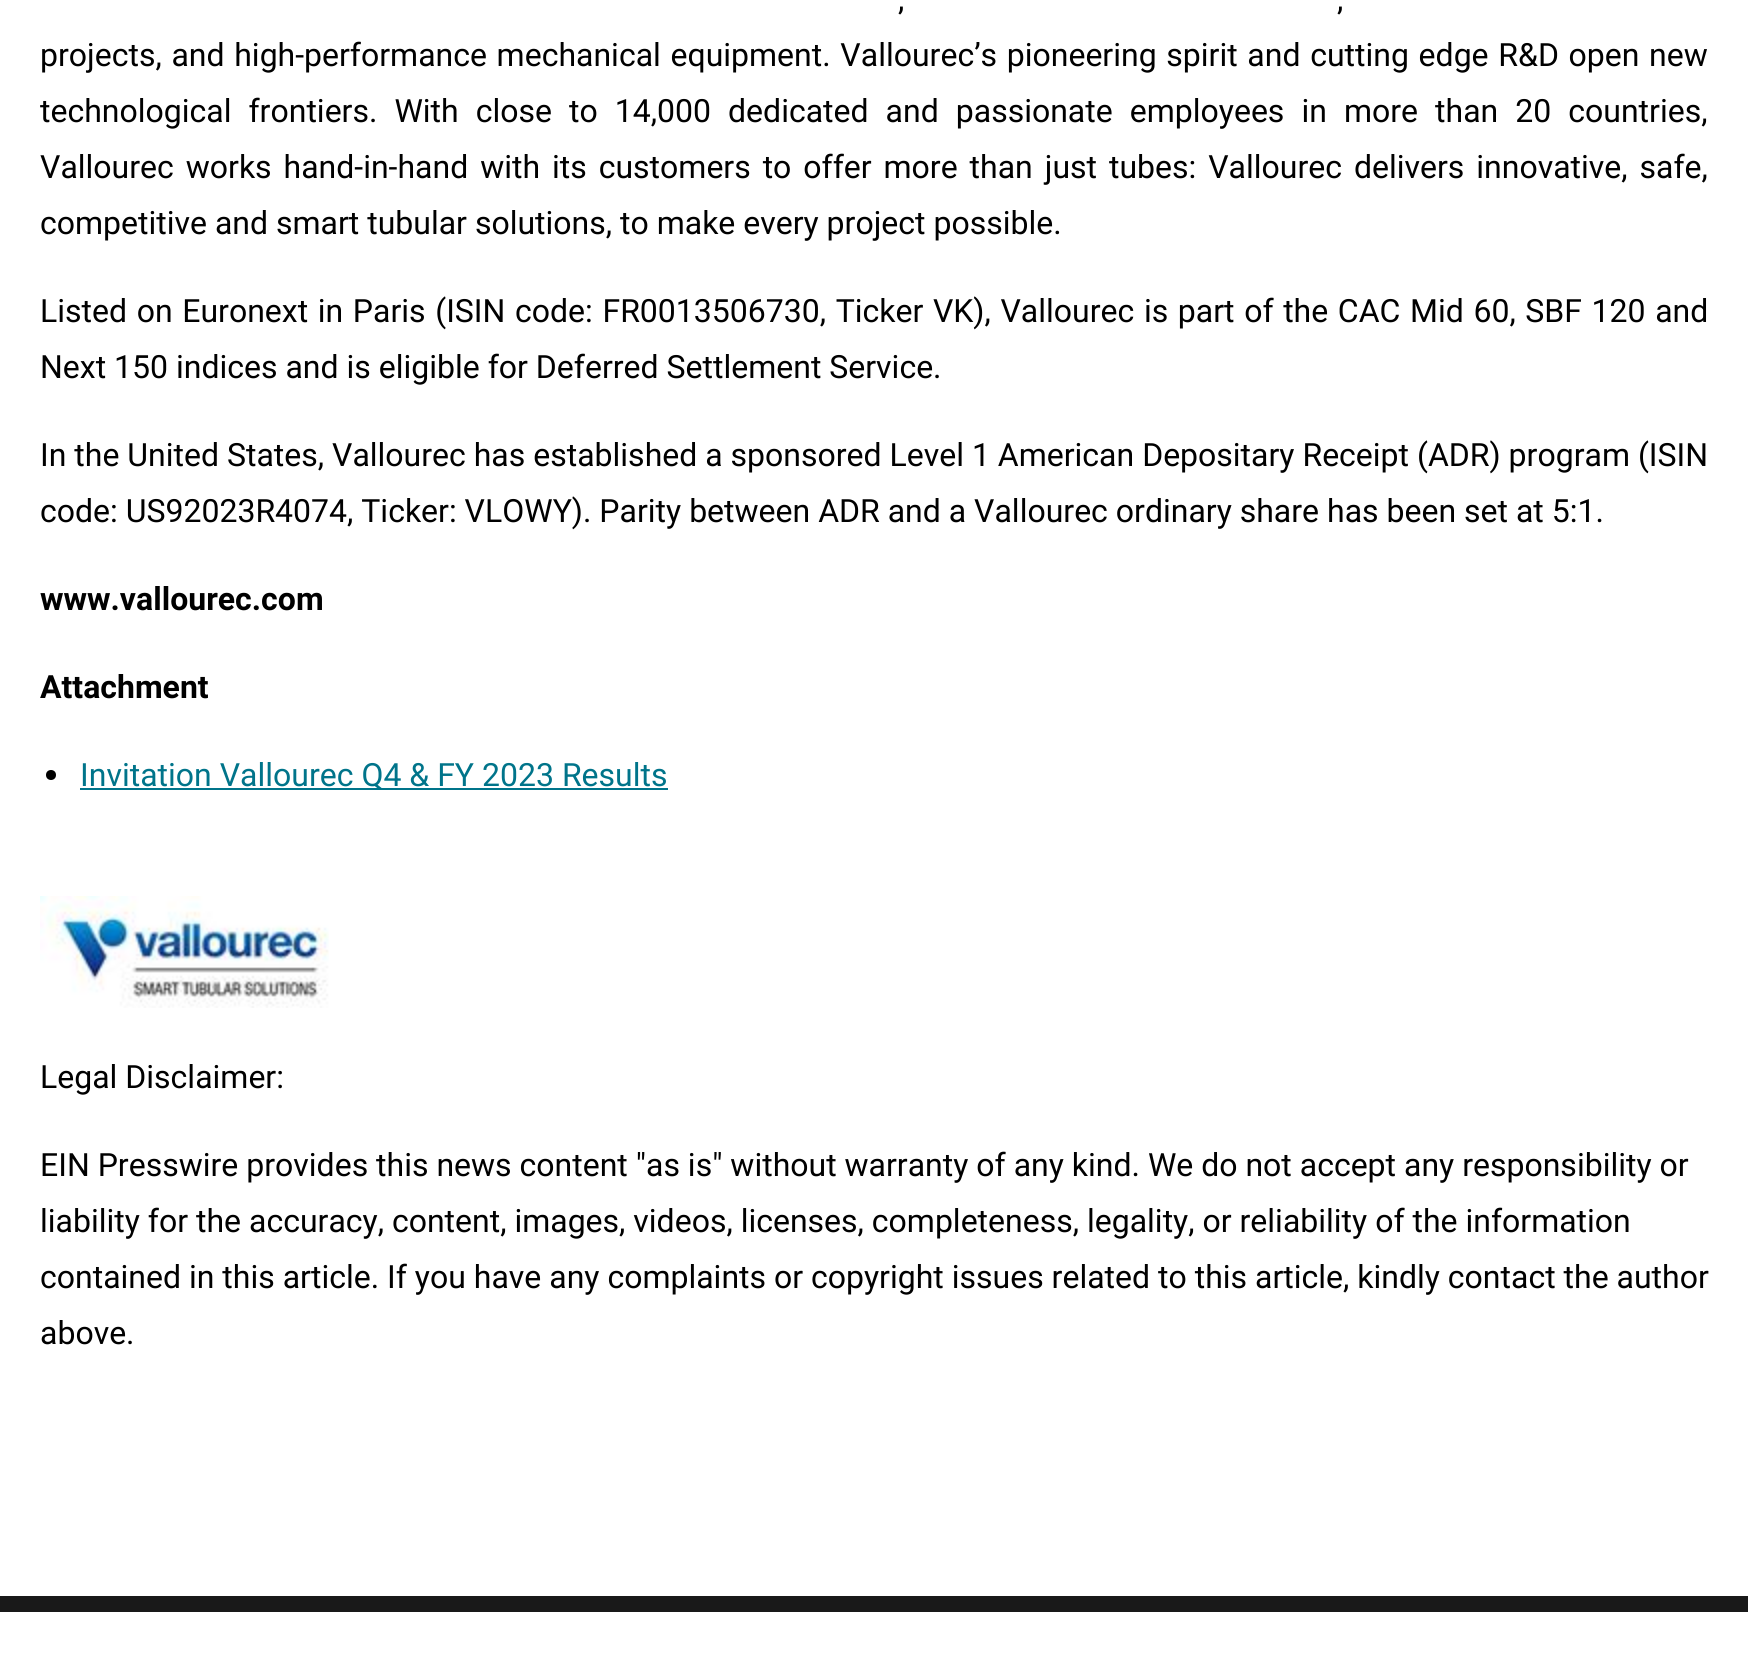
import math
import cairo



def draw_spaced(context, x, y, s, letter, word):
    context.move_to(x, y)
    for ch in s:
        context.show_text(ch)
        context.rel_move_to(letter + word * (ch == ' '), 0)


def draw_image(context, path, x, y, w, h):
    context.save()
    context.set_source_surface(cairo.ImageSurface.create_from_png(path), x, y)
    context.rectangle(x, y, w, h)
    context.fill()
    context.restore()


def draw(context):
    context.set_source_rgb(1, 1, 1)
    context.paint()
    context.set_source_rgb(0, 0, 0)
    context.arc(51, 775, 5, 0, 2 * math.pi)
    context.fill()
    context.set_source_rgb(0, 116 / 255, 138 / 255)
    context.rectangle(80, 788, 588, 2)
    context.fill()
    draw_image(context, "images/1.png", 40, 896, 289, 112)
    context.set_source_rgb(25 / 255, 25 / 255, 25 / 255)
    context.rectangle(0, 1596, 1748, 16)
    context.fill()
    context.select_font_face("Roboto")
    context.set_font_size(32)
    context.set_source_rgb(0, 0, 0)
    draw_spaced(context, 898, 10, ",", 0, 4)
    draw_spaced(context, 1337, 10, ",", 0, 4)
    draw_spaced(context, 40, 66, "projects, and high-performance mechanical equipment. Vallourec’s pioneering spirit and cutting edge R&D open new", 0, 1.75)
    draw_spaced(context, 40, 122, "technological frontiers. With close to 14,000 dedicated and passionate employees in more than 20 countries,", 0, 9.1)
    draw_spaced(context, 40, 178, "Vallourec works hand-in-hand with its customers to offer more than just tubes: Vallourec delivers innovative, safe,", 0, 4)
    context.move_to(40, 234)
    context.show_text("competitive and smart tubular solutions, to make every project possible.")
    draw_spaced(context, 40, 322, "Listed on Euronext in Paris (ISIN code: FR0013506730, Ticker VK), Vallourec is part of the CAC Mid 60, SBF 120 and", 0, 1.7)
    context.move_to(40, 378)
    context.show_text("Next 150 indices and is eligible for Deferred Settlement Service.")
    context.move_to(40, 466)
    context.show_text("In the United States, Vallourec has established a sponsored Level 1 American Depositary Receipt (ADR) program (ISIN")
    context.move_to(40, 522)
    context.show_text("code: US92023R4074, Ticker: VLOWY). Parity between ADR and a Vallourec ordinary share has been set at 5:1.")
    context.select_font_face("Roboto", cairo.FontSlant.NORMAL, cairo.FontWeight.BOLD)
    context.move_to(40, 610)
    context.show_text("www.vallourec.com")
    context.move_to(40, 698)
    context.show_text("Attachment")
    context.select_font_face("Roboto")
    context.set_source_rgb(0, 116 / 255, 138 / 255)
    context.move_to(80, 786)
    context.show_text("Invitation Vallourec Q4 & FY 2023 Results")
    context.set_source_rgb(0, 0, 0)
    context.move_to(40, 1088)
    context.show_text("Legal Disclaimer:")
    context.move_to(40, 1176)
    context.show_text("EIN Presswire provides this news content \"as is\" without warranty of any kind. We do not accept any responsibility or")
    context.move_to(40, 1232)
    context.show_text("liability for the accuracy, content, images, videos, licenses, completeness, legality, or reliability of the information")
    context.move_to(40, 1288)
    context.show_text("contained in this article. If you have any complaints or copyright issues related to this article, kindly contact the author")
    context.move_to(40, 1344)
    context.show_text("above.")


surface = cairo.ImageSurface(cairo.Format.RGB24, 1748, 1678)
context = cairo.Context(surface)
options = cairo.FontOptions()
options.set_hint_metrics(cairo.HintMetrics.OFF)
options.set_hint_style(cairo.HintStyle.NONE)
context.set_font_options(options)
context.set_miter_limit(4)
draw(context)
surface.write_to_png("out.png")
